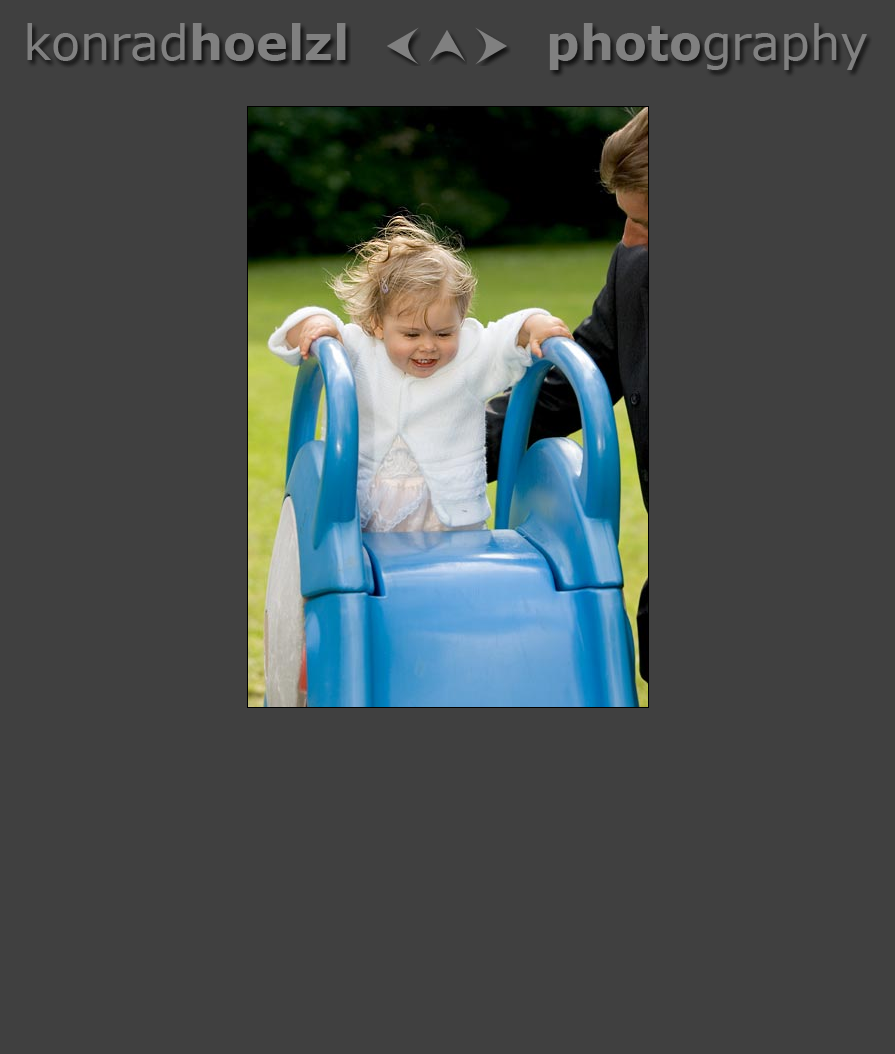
import math
import cairo



def draw_image(context, path, x, y, w, h):
    context.save()
    context.set_source_surface(cairo.ImageSurface.create_from_png(path), x, y)
    context.rectangle(x, y, w, h)
    context.fill()
    context.restore()


def draw(context):
    context.set_source_rgb(64 / 255, 64 / 255, 64 / 255)
    context.paint()
    draw_image(context, "images/1.png", 27, 23, 324, 45)
    draw_image(context, "images/2.png", 387, 27, 34, 39)
    draw_image(context, "images/3.png", 428, 30, 39, 35)
    draw_image(context, "images/4.png", 475, 27, 36, 39)
    draw_image(context, "images/5.png", 549, 23, 323, 54)
    context.rectangle(247.5, 106.5, 401, 601)
    context.set_source_rgb(0, 0, 0)
    context.set_line_width(1)
    context.stroke()
    draw_image(context, "images/6.png", 248, 107, 400, 600)


surface = cairo.ImageSurface(cairo.Format.RGB24, 895, 1054)
context = cairo.Context(surface)
options = cairo.FontOptions()
options.set_hint_metrics(cairo.HintMetrics.OFF)
options.set_hint_style(cairo.HintStyle.NONE)
context.set_font_options(options)
context.set_miter_limit(4)
draw(context)
surface.write_to_png("out.png")
